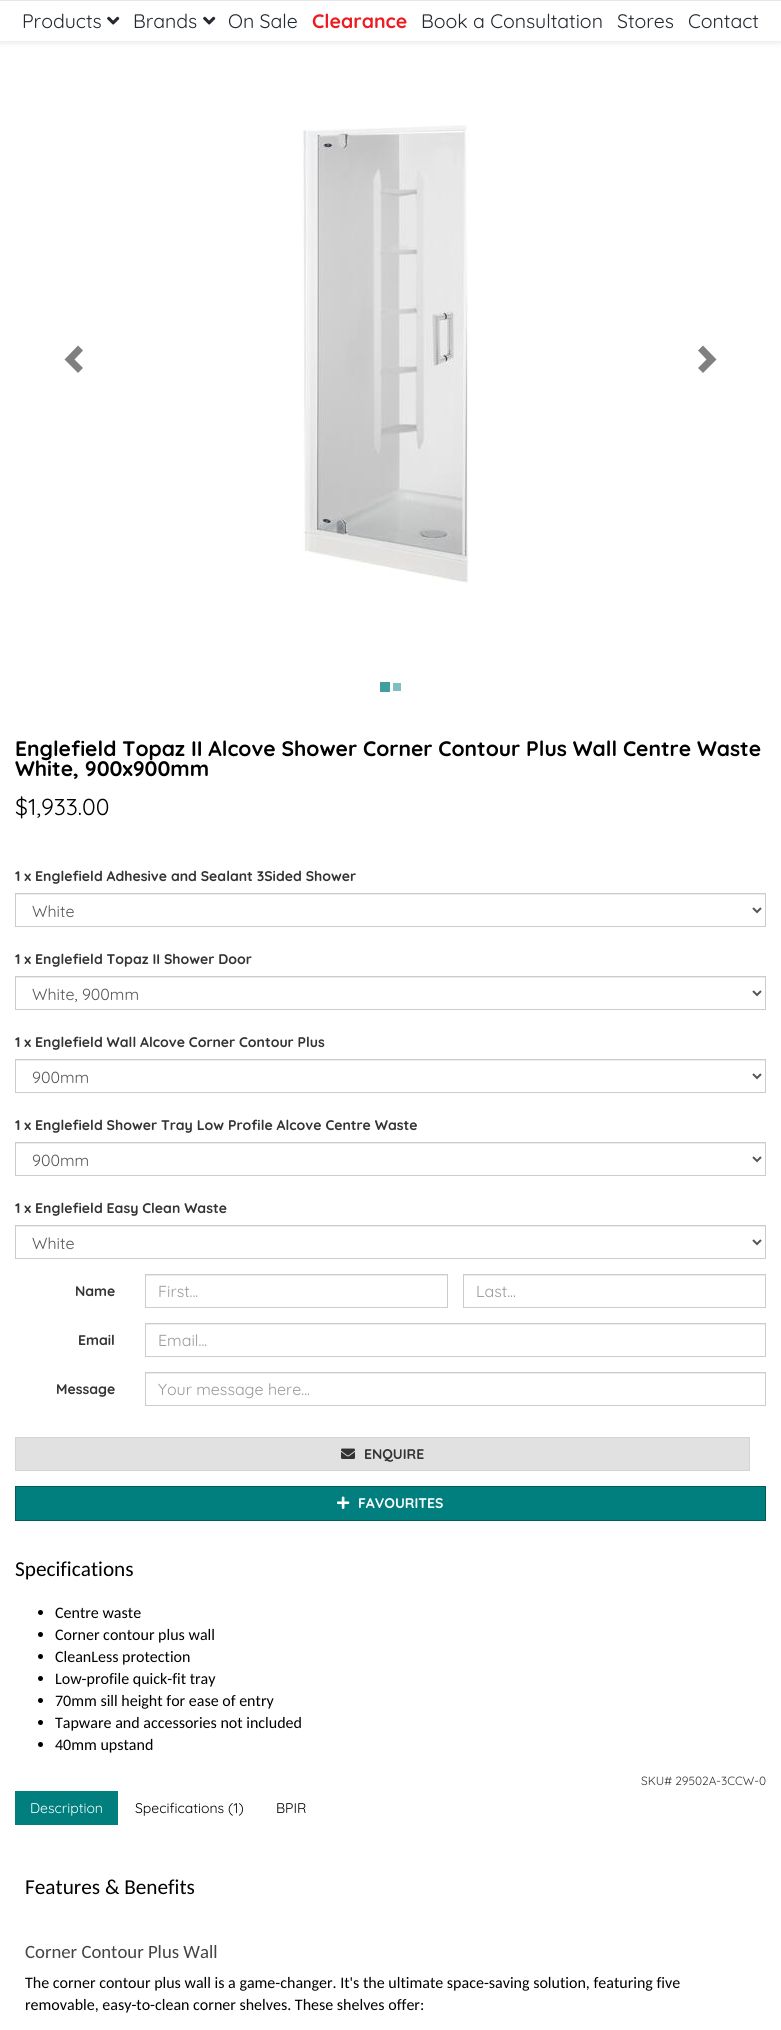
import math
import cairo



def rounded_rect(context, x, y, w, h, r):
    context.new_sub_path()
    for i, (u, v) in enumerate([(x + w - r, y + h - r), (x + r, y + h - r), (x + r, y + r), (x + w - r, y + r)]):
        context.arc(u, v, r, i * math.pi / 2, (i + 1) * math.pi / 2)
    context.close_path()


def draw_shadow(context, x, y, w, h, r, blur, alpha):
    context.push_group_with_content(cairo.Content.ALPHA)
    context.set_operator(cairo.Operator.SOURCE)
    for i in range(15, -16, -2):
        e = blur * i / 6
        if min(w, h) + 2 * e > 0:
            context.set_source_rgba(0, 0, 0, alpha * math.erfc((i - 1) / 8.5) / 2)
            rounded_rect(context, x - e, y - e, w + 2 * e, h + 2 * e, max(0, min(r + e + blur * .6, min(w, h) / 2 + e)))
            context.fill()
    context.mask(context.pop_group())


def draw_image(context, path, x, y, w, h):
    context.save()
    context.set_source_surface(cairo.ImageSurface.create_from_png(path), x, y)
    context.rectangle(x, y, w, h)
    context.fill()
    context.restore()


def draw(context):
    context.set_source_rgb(1, 1, 1)
    context.paint()
    context.set_source_rgb(200 / 255, 200 / 255, 200 / 255)
    draw_shadow(context, 0, 1, 781, 41, 0, 3, 0.5)
    context.set_source_rgb(1, 1, 1)
    context.rectangle(0, 1, 781, 40)
    context.fill()
    context.set_source_rgb(231 / 255, 231 / 255, 231 / 255)
    context.rectangle(0, 0, 781, 1)
    context.fill()
    draw_image(context, "images/1.png", 107, 16, 13, 9)
    draw_image(context, "images/1.png", 203, 16, 13, 9)
    context.set_source_rgb(128 / 255, 128 / 255, 128 / 255)
    context.new_path()
    context.move_to(83, 350.5)
    context.line_to(74.5, 359.5)
    context.line_to(83, 368)
    context.line_to(78, 373)
    context.line_to(64.5, 359.5)
    context.line_to(78, 345.5)
    context.close_path()
    context.fill()
    draw_image(context, "images/2.png", 302, 125, 167, 458)
    context.new_path()
    context.move_to(716.5, 359.5)
    context.line_to(703, 373)
    context.line_to(698, 368)
    context.line_to(706.5, 359.5)
    context.line_to(698, 350.5)
    context.line_to(703, 345.5)
    context.close_path()
    context.fill()
    context.set_source_rgb(64 / 255, 159 / 255, 158 / 255)
    context.rectangle(380, 682, 10, 10)
    context.fill()
    context.set_source_rgb(128 / 255, 191 / 255, 191 / 255)
    context.rectangle(393, 683, 8, 8)
    context.fill()
    context.set_source_rgb(236 / 255, 236 / 255, 236 / 255)
    context.rectangle(16, 894, 749, 1)
    context.fill()
    context.rectangle(15.5, 893.5, 750, 33)
    context.set_source_rgb(204 / 255, 204 / 255, 204 / 255)
    context.set_line_width(1)
    context.stroke()
    context.new_path()
    context.move_to(753, 908)
    context.line_to(757, 912)
    context.line_to(761, 908)
    context.set_source_rgb(85 / 255, 85 / 255, 85 / 255)
    context.set_line_width(2)
    context.stroke()
    context.set_source_rgb(236 / 255, 236 / 255, 236 / 255)
    context.rectangle(16, 977, 749, 1)
    context.fill()
    context.rectangle(15.5, 976.5, 750, 33)
    context.set_source_rgb(204 / 255, 204 / 255, 204 / 255)
    context.set_line_width(1)
    context.stroke()
    context.new_path()
    context.move_to(753, 991)
    context.line_to(757, 995)
    context.line_to(761, 991)
    context.set_source_rgb(85 / 255, 85 / 255, 85 / 255)
    context.set_line_width(2)
    context.stroke()
    context.set_source_rgb(236 / 255, 236 / 255, 236 / 255)
    context.rectangle(16, 1060, 749, 1)
    context.fill()
    context.rectangle(15.5, 1059.5, 750, 33)
    context.set_source_rgb(204 / 255, 204 / 255, 204 / 255)
    context.set_line_width(1)
    context.stroke()
    context.new_path()
    context.move_to(753, 1074)
    context.line_to(757, 1078)
    context.line_to(761, 1074)
    context.set_source_rgb(85 / 255, 85 / 255, 85 / 255)
    context.set_line_width(2)
    context.stroke()
    context.set_source_rgb(236 / 255, 236 / 255, 236 / 255)
    context.rectangle(16, 1143, 749, 1)
    context.fill()
    context.rectangle(15.5, 1142.5, 750, 33)
    context.set_source_rgb(204 / 255, 204 / 255, 204 / 255)
    context.set_line_width(1)
    context.stroke()
    context.new_path()
    context.move_to(753, 1157)
    context.line_to(757, 1161)
    context.line_to(761, 1157)
    context.set_source_rgb(85 / 255, 85 / 255, 85 / 255)
    context.set_line_width(2)
    context.stroke()
    context.set_source_rgb(236 / 255, 236 / 255, 236 / 255)
    context.rectangle(16, 1226, 749, 1)
    context.fill()
    context.rectangle(15.5, 1225.5, 750, 33)
    context.set_source_rgb(204 / 255, 204 / 255, 204 / 255)
    context.set_line_width(1)
    context.stroke()
    context.new_path()
    context.move_to(753, 1240)
    context.line_to(757, 1244)
    context.line_to(761, 1240)
    context.set_source_rgb(85 / 255, 85 / 255, 85 / 255)
    context.set_line_width(2)
    context.stroke()
    context.set_source_rgb(236 / 255, 236 / 255, 236 / 255)
    context.rectangle(146, 1275, 301, 1)
    context.fill()
    context.rectangle(145.5, 1274.5, 302, 33)
    context.set_source_rgb(204 / 255, 204 / 255, 204 / 255)
    context.set_line_width(1)
    context.stroke()
    context.set_source_rgb(236 / 255, 236 / 255, 236 / 255)
    context.rectangle(464, 1275, 301, 1)
    context.fill()
    context.rectangle(463.5, 1274.5, 302, 33)
    context.set_source_rgb(204 / 255, 204 / 255, 204 / 255)
    context.stroke()
    context.set_source_rgb(236 / 255, 236 / 255, 236 / 255)
    context.rectangle(146, 1324, 619, 1)
    context.fill()
    context.rectangle(145.5, 1323.5, 620, 33)
    context.set_source_rgb(204 / 255, 204 / 255, 204 / 255)
    context.stroke()
    context.set_source_rgb(236 / 255, 236 / 255, 236 / 255)
    context.rectangle(146, 1373, 619, 1)
    context.fill()
    context.rectangle(145.5, 1372.5, 620, 33)
    context.set_source_rgb(204 / 255, 204 / 255, 204 / 255)
    context.stroke()
    context.set_source_rgb(225 / 255, 225 / 255, 225 / 255)
    context.rectangle(15.5, 1437.5, 734, 33)
    context.fill_preserve()
    context.set_source_rgb(212 / 255, 212 / 255, 212 / 255)
    context.stroke()
    draw_image(context, "images/3.png", 341, 1448, 14, 11)
    context.set_source_rgb(0, 127 / 255, 126 / 255)
    context.rectangle(15.5, 1486.5, 750, 34)
    context.fill_preserve()
    context.set_source_rgb(0, 91 / 255, 91 / 255)
    context.stroke()
    draw_image(context, "images/4.png", 337, 1496, 13, 13)
    context.set_source_rgb(0, 0, 0)
    context.arc(40.5, 1612.5, 2.5, 0, 2 * math.pi)
    context.fill()
    context.arc(40.5, 1634.5, 2.5, 0, 2 * math.pi)
    context.fill()
    context.arc(40.5, 1656.5, 2.5, 0, 2 * math.pi)
    context.fill()
    context.arc(40.5, 1678.5, 2.5, 0, 2 * math.pi)
    context.fill()
    context.arc(40.5, 1700.5, 2.5, 0, 2 * math.pi)
    context.fill()
    context.arc(40.5, 1722.5, 2.5, 0, 2 * math.pi)
    context.fill()
    context.arc(40.5, 1744.5, 2.5, 0, 2 * math.pi)
    context.fill()
    context.set_source_rgb(0, 127 / 255, 126 / 255)
    context.rectangle(15, 1791, 103, 34)
    context.fill()
    context.select_font_face("Quicksand")
    context.set_font_size(19.5)
    context.set_source_rgb(34 / 255, 40 / 255, 48 / 255)
    context.move_to(22, 28)
    context.show_text("Products")
    context.move_to(133, 28)
    context.show_text("Brands")
    context.move_to(228, 28)
    context.show_text("On Sale")
    context.select_font_face("Quicksand", cairo.FontSlant.NORMAL, cairo.FontWeight.BOLD)
    context.set_source_rgb(237 / 255, 28 / 255, 36 / 255)
    context.move_to(312, 28)
    context.show_text("Clearance")
    context.select_font_face("Quicksand")
    context.set_source_rgb(34 / 255, 40 / 255, 48 / 255)
    context.move_to(421, 28)
    context.show_text("Book a Consultation")
    context.move_to(617, 28)
    context.show_text("Stores")
    context.move_to(688, 28)
    context.show_text("Contact")
    context.select_font_face("Quicksand", cairo.FontSlant.NORMAL, cairo.FontWeight.BOLD)
    context.set_font_size(21)
    context.set_source_rgb(0, 0, 0)
    context.move_to(15, 756)
    context.show_text("Englefield Topaz II Alcove Shower Corner Contour Plus Wall Centre Waste")
    context.move_to(15, 776)
    context.show_text("White, 900x900mm")
    context.select_font_face("Quicksand")
    context.set_font_size(23)
    context.move_to(15, 815)
    context.show_text("$1,933.00")
    context.select_font_face("Quicksand", cairo.FontSlant.NORMAL, cairo.FontWeight.BOLD)
    context.set_font_size(14)
    context.set_source_rgb(51 / 255, 51 / 255, 51 / 255)
    context.move_to(15, 881)
    context.show_text("1 x Englefield Adhesive and Sealant 3Sided Shower")
    context.select_font_face("Quicksand")
    context.set_font_size(16)
    context.set_source_rgb(85 / 255, 85 / 255, 85 / 255)
    context.move_to(32, 917)
    context.show_text("White")
    context.select_font_face("Quicksand", cairo.FontSlant.NORMAL, cairo.FontWeight.BOLD)
    context.set_font_size(14)
    context.set_source_rgb(51 / 255, 51 / 255, 51 / 255)
    context.move_to(15, 964)
    context.show_text("1 x Englefield Topaz II Shower Door")
    context.select_font_face("Quicksand")
    context.set_font_size(16)
    context.set_source_rgb(85 / 255, 85 / 255, 85 / 255)
    context.move_to(32, 1000)
    context.show_text("White, 900mm")
    context.select_font_face("Quicksand", cairo.FontSlant.NORMAL, cairo.FontWeight.BOLD)
    context.set_font_size(14)
    context.set_source_rgb(51 / 255, 51 / 255, 51 / 255)
    context.move_to(15, 1047)
    context.show_text("1 x Englefield Wall Alcove Corner Contour Plus")
    context.select_font_face("Quicksand")
    context.set_font_size(16)
    context.set_source_rgb(85 / 255, 85 / 255, 85 / 255)
    context.move_to(32, 1083)
    context.show_text("900mm")
    context.select_font_face("Quicksand", cairo.FontSlant.NORMAL, cairo.FontWeight.BOLD)
    context.set_font_size(14)
    context.set_source_rgb(51 / 255, 51 / 255, 51 / 255)
    context.move_to(15, 1130)
    context.show_text("1 x Englefield Shower Tray Low Profile Alcove Centre Waste")
    context.select_font_face("Quicksand")
    context.set_font_size(16)
    context.set_source_rgb(85 / 255, 85 / 255, 85 / 255)
    context.move_to(32, 1166)
    context.show_text("900mm")
    context.select_font_face("Quicksand", cairo.FontSlant.NORMAL, cairo.FontWeight.BOLD)
    context.set_font_size(14)
    context.set_source_rgb(51 / 255, 51 / 255, 51 / 255)
    context.move_to(15, 1213)
    context.show_text("1 x Englefield Easy Clean Waste")
    context.select_font_face("Quicksand")
    context.set_font_size(16)
    context.set_source_rgb(85 / 255, 85 / 255, 85 / 255)
    context.move_to(32, 1249)
    context.show_text("White")
    context.select_font_face("Quicksand", cairo.FontSlant.NORMAL, cairo.FontWeight.BOLD)
    context.set_font_size(14)
    context.set_source_rgb(51 / 255, 51 / 255, 51 / 255)
    context.move_to(75, 1296)
    context.show_text("Name")
    context.select_font_face("Quicksand")
    context.set_font_size(16)
    context.set_source_rgb(153 / 255, 153 / 255, 153 / 255)
    context.move_to(158, 1297)
    context.show_text("First...")
    context.move_to(476, 1297)
    context.show_text("Last...")
    context.select_font_face("Quicksand", cairo.FontSlant.NORMAL, cairo.FontWeight.BOLD)
    context.set_font_size(14)
    context.set_source_rgb(51 / 255, 51 / 255, 51 / 255)
    context.move_to(78, 1345)
    context.show_text("Email")
    context.select_font_face("Quicksand")
    context.set_font_size(16)
    context.set_source_rgb(153 / 255, 153 / 255, 153 / 255)
    context.move_to(158, 1346)
    context.show_text("Email...")
    context.select_font_face("Quicksand", cairo.FontSlant.NORMAL, cairo.FontWeight.BOLD)
    context.set_font_size(14)
    context.set_source_rgb(51 / 255, 51 / 255, 51 / 255)
    context.move_to(56, 1394)
    context.show_text("Message")
    context.select_font_face("Quicksand")
    context.set_font_size(16)
    context.set_source_rgb(153 / 255, 153 / 255, 153 / 255)
    context.move_to(158, 1395)
    context.show_text("Your message here...")
    context.select_font_face("Quicksand", cairo.FontSlant.NORMAL, cairo.FontWeight.BOLD)
    context.set_font_size(14)
    context.set_source_rgb(51 / 255, 51 / 255, 51 / 255)
    context.move_to(364, 1459)
    context.show_text("ENQUIRE")
    context.set_source_rgb(1, 1, 1)
    context.move_to(358, 1508)
    context.show_text("FAVOURITES")
    context.select_font_face("Carlito")
    context.set_font_size(21.25)
    context.set_source_rgb(0, 0, 0)
    context.move_to(15, 1576)
    context.show_text("Specifications")
    context.set_font_size(16)
    context.move_to(55, 1618)
    context.show_text("Centre waste")
    context.move_to(55, 1640)
    context.show_text("Corner contour plus wall")
    context.move_to(55, 1662)
    context.show_text("CleanLess protection")
    context.move_to(55, 1684)
    context.show_text("Low-profile quick-fit tray")
    context.move_to(55, 1706)
    context.show_text("70mm sill height for ease of entry")
    context.move_to(55, 1728)
    context.show_text("Tapware and accessories not included")
    context.move_to(55, 1750)
    context.show_text("40mm upstand")
    context.select_font_face("Quicksand")
    context.set_font_size(11.9)
    context.set_source_rgb(51 / 255, 51 / 255, 51 / 255)
    context.move_to(641, 1785)
    context.show_text("SKU# 29502A-3CCW-0")
    context.set_font_size(14)
    context.set_source_rgb(1, 1, 1)
    context.move_to(30, 1813)
    context.show_text("Description")
    context.set_source_rgb(0, 0, 0)
    context.move_to(135, 1813)
    context.show_text("Specifications (1)")
    context.move_to(276, 1813)
    context.show_text("BPIR")
    context.select_font_face("Carlito")
    context.set_font_size(21.25)
    context.move_to(25, 1894)
    context.show_text("Features & Benefits")
    context.set_font_size(18.75)
    context.set_source_rgb(67 / 255, 67 / 255, 67 / 255)
    context.move_to(25, 1958)
    context.show_text("Corner Contour Plus Wall")
    context.set_font_size(16)
    context.set_source_rgb(0, 0, 0)
    context.move_to(25, 1988)
    context.show_text("The corner contour plus wall is a game-changer. It's the ultimate space-saving solution, featuring five")
    context.move_to(25, 2010)
    context.show_text("removable, easy-to-clean corner shelves. These shelves offer:")


surface = cairo.ImageSurface(cairo.Format.RGB24, 781, 2030)
context = cairo.Context(surface)
options = cairo.FontOptions()
options.set_hint_metrics(cairo.HintMetrics.OFF)
options.set_hint_style(cairo.HintStyle.NONE)
context.set_font_options(options)
context.set_miter_limit(4)
draw(context)
surface.write_to_png("out.png")
